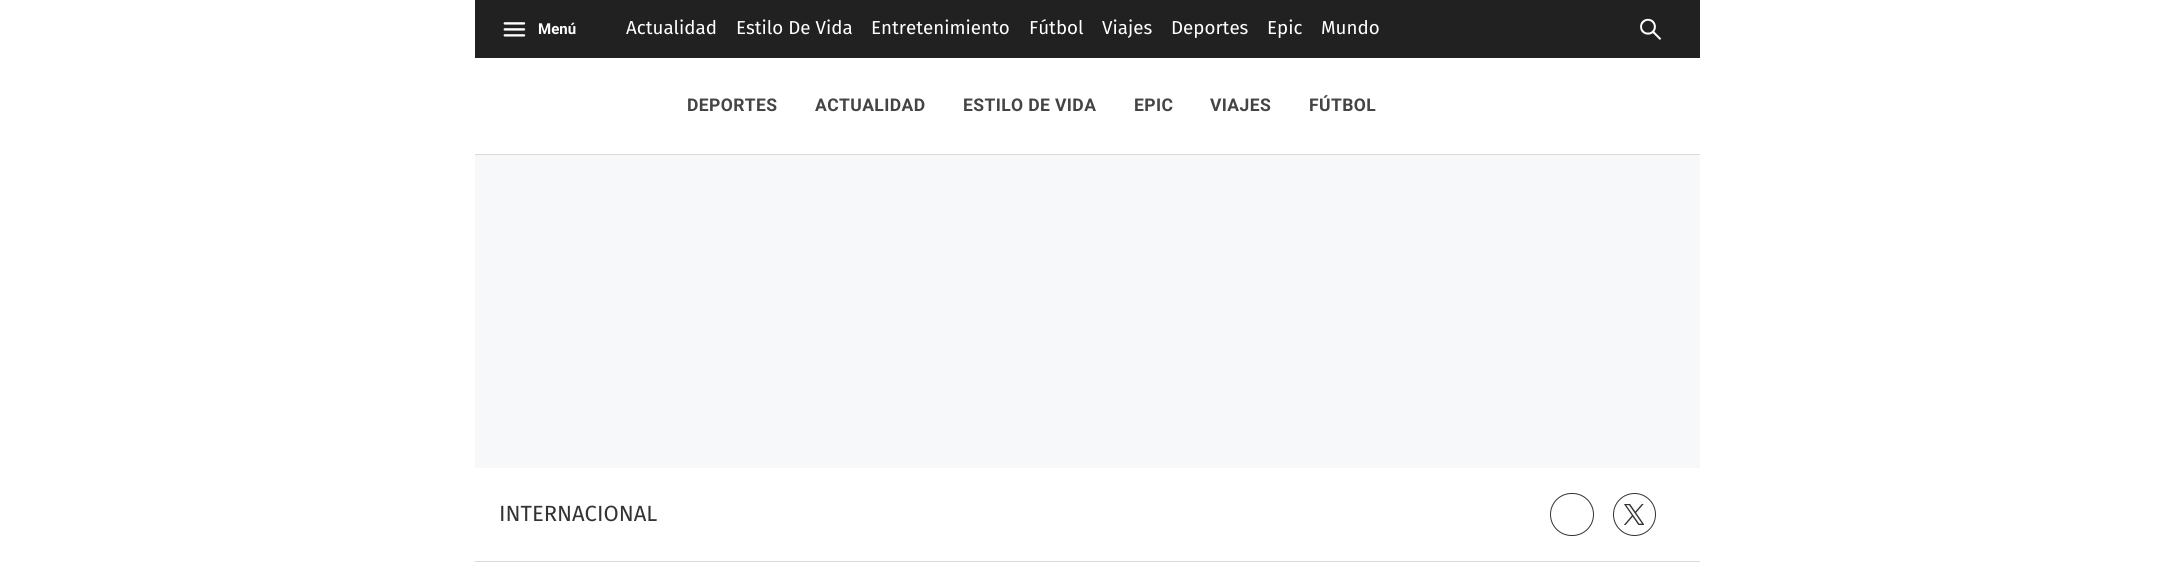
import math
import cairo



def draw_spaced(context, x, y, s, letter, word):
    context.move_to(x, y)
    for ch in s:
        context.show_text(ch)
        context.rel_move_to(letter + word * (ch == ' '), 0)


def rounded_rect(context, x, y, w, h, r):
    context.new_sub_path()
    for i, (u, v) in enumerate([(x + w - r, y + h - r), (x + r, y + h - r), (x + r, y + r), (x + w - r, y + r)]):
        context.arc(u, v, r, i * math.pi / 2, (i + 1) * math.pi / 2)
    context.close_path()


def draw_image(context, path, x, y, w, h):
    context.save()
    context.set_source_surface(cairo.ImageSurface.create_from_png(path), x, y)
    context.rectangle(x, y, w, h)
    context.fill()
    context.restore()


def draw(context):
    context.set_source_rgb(1, 1, 1)
    context.paint()
    context.set_source_rgb(33 / 255, 33 / 255, 33 / 255)
    context.rectangle(475, 0, 1225, 58)
    context.fill()
    draw_image(context, "images/1.png", 503, 22, 23, 15)
    draw_image(context, "images/2.png", 1640, 18, 22, 22)
    context.set_source_rgb(218 / 255, 218 / 255, 218 / 255)
    context.rectangle(475, 154, 1225, 1)
    context.fill()
    context.set_source_rgb(247 / 255, 248 / 255, 249 / 255)
    context.rectangle(475, 155, 1225, 313)
    context.fill()
    context.set_source_rgb(218 / 255, 218 / 255, 218 / 255)
    context.rectangle(475, 561, 1225, 1)
    context.fill()
    rounded_rect(context, 1550.5, 493.5, 43, 42, 21)
    context.set_source_rgb(51 / 255, 51 / 255, 51 / 255)
    context.set_line_width(1)
    context.stroke()
    context.arc(1634.5, 514.5, 21, 0, 2 * math.pi)
    context.stroke()
    draw_image(context, "images/3.png", 1624, 504, 20, 21)
    context.select_font_face("Roboto", cairo.FontSlant.NORMAL, cairo.FontWeight.BOLD)
    context.set_font_size(15)
    context.set_source_rgb(1, 1, 1)
    context.move_to(538, 34)
    context.show_text("Menú")
    context.select_font_face("Fira Sans")
    context.set_font_size(18.75)
    context.move_to(626, 34)
    context.show_text("Actualidad")
    context.move_to(736, 34)
    context.show_text("Estilo De Vida")
    context.move_to(871, 34)
    context.show_text("Entretenimiento")
    context.move_to(1029, 34)
    context.show_text("Fútbol")
    context.move_to(1102, 34)
    context.show_text("Viajes")
    context.move_to(1171, 34)
    context.show_text("Deportes")
    context.move_to(1267, 34)
    context.show_text("Epic")
    context.move_to(1321, 34)
    context.show_text("Mundo")
    context.select_font_face("Roboto", cairo.FontSlant.NORMAL, cairo.FontWeight.BOLD)
    context.set_font_size(17.5)
    context.set_source_rgb(68 / 255, 68 / 255, 68 / 255)
    draw_spaced(context, 687, 111, "DEPORTES", 0.4, 0)
    draw_spaced(context, 815, 111, "ACTUALIDAD", 0.4, 0)
    draw_spaced(context, 963, 111, "ESTILO DE VIDA", 0.4, 0)
    draw_spaced(context, 1134, 111, "EPIC", 0.4, 0)
    draw_spaced(context, 1210, 111, "VIAJES", 0.4, 0)
    draw_spaced(context, 1309, 111, "FÚTBOL", 0.4, 0)
    context.select_font_face("Fira Sans")
    context.set_font_size(22)
    context.set_source_rgb(51 / 255, 51 / 255, 51 / 255)
    context.move_to(499, 521)
    context.show_text("INTERNACIONAL")


surface = cairo.ImageSurface(cairo.Format.RGB24, 2173, 582)
context = cairo.Context(surface)
options = cairo.FontOptions()
options.set_hint_metrics(cairo.HintMetrics.OFF)
options.set_hint_style(cairo.HintStyle.NONE)
context.set_font_options(options)
context.set_miter_limit(4)
draw(context)
surface.write_to_png("out.png")
